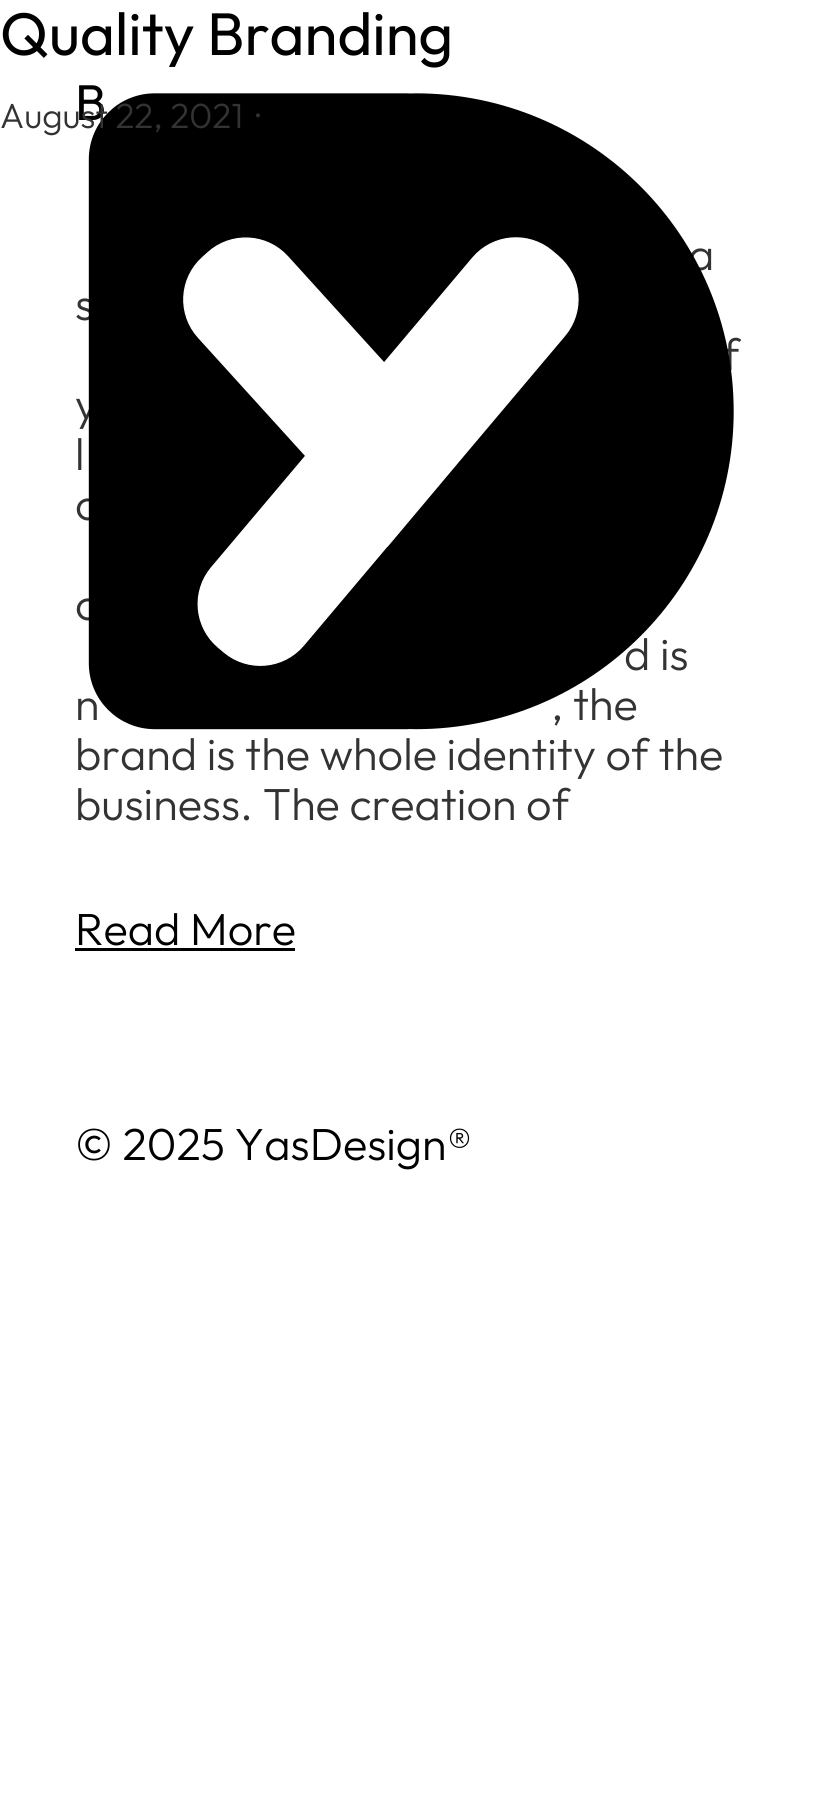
import math
import cairo



def draw_image(context, path, x, y, w, h):
    context.save()
    context.set_source_surface(cairo.ImageSurface.create_from_png(path), x, y)
    context.rectangle(x, y, w, h)
    context.fill()
    context.restore()


def draw(context):
    context.set_source_rgb(1, 1, 1)
    context.paint()
    context.set_source_rgb(0, 0, 0)
    context.rectangle(75, 948, 220, 3)
    context.fill()
    context.select_font_face("Outfit")
    context.set_font_size(60)
    context.move_to(0, 55)
    context.show_text("Quality Branding")
    context.select_font_face("Outfit Light")
    context.set_font_size(45)
    context.set_source_rgb(51 / 255, 51 / 255, 51 / 255)
    context.move_to(688, 270)
    context.show_text("a")
    context.move_to(75, 320)
    context.show_text("s")
    context.move_to(722, 370)
    context.show_text("f")
    context.move_to(75, 420)
    context.show_text("y")
    context.move_to(75, 470)
    context.show_text("l")
    context.move_to(75, 520)
    context.show_text("c")
    context.move_to(75, 620)
    context.show_text("c")
    context.move_to(624, 670)
    context.show_text("d is")
    context.move_to(75, 720)
    context.show_text("n")
    context.move_to(551, 720)
    context.show_text(", the")
    context.move_to(75, 770)
    context.show_text("brand is the whole identity of the")
    context.move_to(75, 820)
    context.show_text("business. The creation of")
    context.set_source_rgb(0, 0, 0)
    context.move_to(75, 945)
    context.show_text("Read More")
    context.select_font_face("Outfit")
    context.set_font_size(50)
    context.move_to(75, 120)
    context.show_text("B")
    draw_image(context, "images/1.png", 88, 93, 646, 637)
    context.select_font_face("Outfit Light")
    context.set_font_size(35)
    context.set_source_rgb(51 / 255, 51 / 255, 51 / 255)
    context.move_to(256, 128)
    context.show_text("·")
    context.move_to(0, 128)
    context.show_text("August 22, 2021")
    context.set_font_size(45)
    context.set_source_rgb(0, 0, 0)
    context.move_to(75, 1160)
    context.show_text("© 2025 YasDesign®")


surface = cairo.ImageSurface(cairo.Format.RGB24, 822, 1803)
context = cairo.Context(surface)
options = cairo.FontOptions()
options.set_hint_metrics(cairo.HintMetrics.OFF)
options.set_hint_style(cairo.HintStyle.NONE)
context.set_font_options(options)
context.set_miter_limit(4)
draw(context)
surface.write_to_png("out.png")
